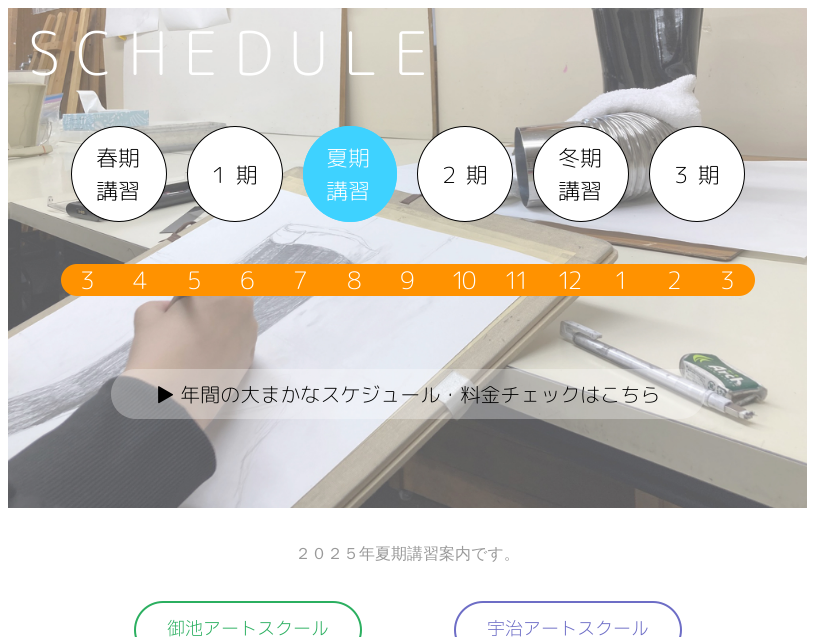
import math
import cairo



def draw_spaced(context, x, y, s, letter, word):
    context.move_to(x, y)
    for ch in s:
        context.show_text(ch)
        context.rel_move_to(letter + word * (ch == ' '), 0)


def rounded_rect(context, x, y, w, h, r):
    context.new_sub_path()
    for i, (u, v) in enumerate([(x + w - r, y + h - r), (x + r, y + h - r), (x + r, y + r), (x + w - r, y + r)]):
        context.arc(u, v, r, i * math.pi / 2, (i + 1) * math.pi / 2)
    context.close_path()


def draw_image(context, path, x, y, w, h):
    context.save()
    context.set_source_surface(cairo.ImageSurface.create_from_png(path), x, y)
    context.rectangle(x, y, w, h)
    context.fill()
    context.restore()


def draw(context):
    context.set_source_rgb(1, 1, 1)
    context.paint()
    draw_image(context, "images/1.png", 8, 8, 799, 500)
    context.set_source_rgb(1, 1, 1)
    context.arc(119, 174, 47.5, 0, 2 * math.pi)
    context.fill_preserve()
    context.set_source_rgb(0, 0, 0)
    context.set_line_width(1)
    context.stroke()
    context.set_source_rgb(1, 1, 1)
    context.arc(235, 174, 47.5, 0, 2 * math.pi)
    context.fill_preserve()
    context.set_source_rgb(0, 0, 0)
    context.stroke()
    context.set_source_rgb(62 / 255, 210 / 255, 1)
    context.new_path()
    context.move_to(350, 126)
    context.curve_to(376, 126, 397, 147.5, 397, 174)
    context.curve_to(397, 200.5, 376, 222, 350, 222)
    context.curve_to(324, 222, 303, 200.5, 303, 174)
    context.curve_to(303, 147.5, 324, 126, 350, 126)
    context.close_path()
    context.fill()
    context.new_path()
    context.move_to(350, 126.5)
    context.curve_to(375.5, 126.5, 396.5, 148, 396.5, 174)
    context.curve_to(396.5, 200, 375.5, 221.5, 350, 221.5)
    context.curve_to(324.5, 221.5, 303.5, 200, 303.5, 174)
    context.curve_to(303.5, 148, 324.5, 126.5, 350, 126.5)
    context.close_path()
    context.stroke()
    context.set_source_rgb(1, 1, 1)
    context.arc(465, 174, 47.5, 0, 2 * math.pi)
    context.fill_preserve()
    context.set_source_rgb(0, 0, 0)
    context.stroke()
    context.set_source_rgb(1, 1, 1)
    context.arc(581, 174, 47.5, 0, 2 * math.pi)
    context.fill_preserve()
    context.set_source_rgb(0, 0, 0)
    context.stroke()
    context.set_source_rgb(1, 1, 1)
    context.arc(697, 174, 47.5, 0, 2 * math.pi)
    context.fill_preserve()
    context.set_source_rgb(0, 0, 0)
    context.stroke()
    context.set_source_rgb(1, 146 / 255, 0)
    rounded_rect(context, 61, 264, 694, 32, 16)
    context.fill()
    context.set_source_rgba(1, 1, 1, 0.3)
    rounded_rect(context, 111, 369, 594, 50, 25)
    context.fill()
    rounded_rect(context, 135, 602, 226, 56, 28)
    context.set_source_rgb(43 / 255, 175 / 255, 96 / 255)
    context.set_line_width(2)
    context.stroke()
    rounded_rect(context, 455, 602, 226, 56, 28)
    context.set_source_rgb(109 / 255, 109 / 255, 198 / 255)
    context.stroke()
    context.select_font_face("Rounded Mplus 1c Light")
    context.set_font_size(60)
    context.set_source_rgb(1, 1, 1)
    context.move_to(28, 75)
    context.show_text("S C H E D U L E")
    context.set_font_size(22)
    context.set_source_rgb(0, 0, 0)
    context.move_to(96, 166)
    context.show_text("春期")
    context.move_to(96, 199)
    context.show_text("講習")
    context.move_to(208, 183)
    context.show_text("１ 期")
    context.set_source_rgb(1, 1, 1)
    context.move_to(326, 166)
    context.show_text("夏期")
    context.move_to(326, 199)
    context.show_text("講習")
    context.set_source_rgb(0, 0, 0)
    context.move_to(438, 183)
    context.show_text("２ 期")
    context.move_to(558, 166)
    context.show_text("冬期")
    context.move_to(558, 199)
    context.show_text("講習")
    context.move_to(670, 183)
    context.show_text("３ 期")
    context.set_font_size(24)
    context.set_source_rgb(1, 1, 1)
    context.move_to(80, 289)
    context.show_text("3")
    context.move_to(133, 289)
    context.show_text("4")
    context.move_to(187, 289)
    context.show_text("5")
    context.move_to(240, 289)
    context.show_text("6")
    context.move_to(293, 289)
    context.show_text("7")
    context.move_to(347, 289)
    context.show_text("8")
    context.move_to(400, 289)
    context.show_text("9")
    draw_spaced(context, 451, 289, "10", -4, 0)
    draw_spaced(context, 504, 289, "11", -4, 0)
    draw_spaced(context, 557, 289, "12", -4, 0)
    context.move_to(614, 289)
    context.show_text("1")
    context.move_to(667, 289)
    context.show_text("2")
    context.move_to(720, 289)
    context.show_text("3")
    context.set_font_size(20)
    context.set_source_rgb(0, 0, 0)
    context.move_to(155, 402)
    context.show_text("▶ 年間の大まかなスケジュール・料金チェックはこちら")
    context.select_font_face("WenQuanYi Zen Hei Medium")
    context.set_font_size(16)
    context.set_source_rgb(153 / 255, 153 / 255, 153 / 255)
    context.move_to(295, 559)
    context.show_text("２０２５年夏期講習案内です。")
    context.select_font_face("IBM Plex Sans JP Light")
    context.set_font_size(18)
    context.set_source_rgb(43 / 255, 175 / 255, 96 / 255)
    context.move_to(167, 635)
    context.show_text("御池アートスクール")
    context.set_source_rgb(109 / 255, 109 / 255, 198 / 255)
    context.move_to(487, 635)
    context.show_text("宇治アートスクール")


surface = cairo.ImageSurface(cairo.Format.RGB24, 815, 637)
context = cairo.Context(surface)
options = cairo.FontOptions()
options.set_hint_metrics(cairo.HintMetrics.OFF)
options.set_hint_style(cairo.HintStyle.NONE)
context.set_font_options(options)
context.set_miter_limit(4)
draw(context)
surface.write_to_png("out.png")
